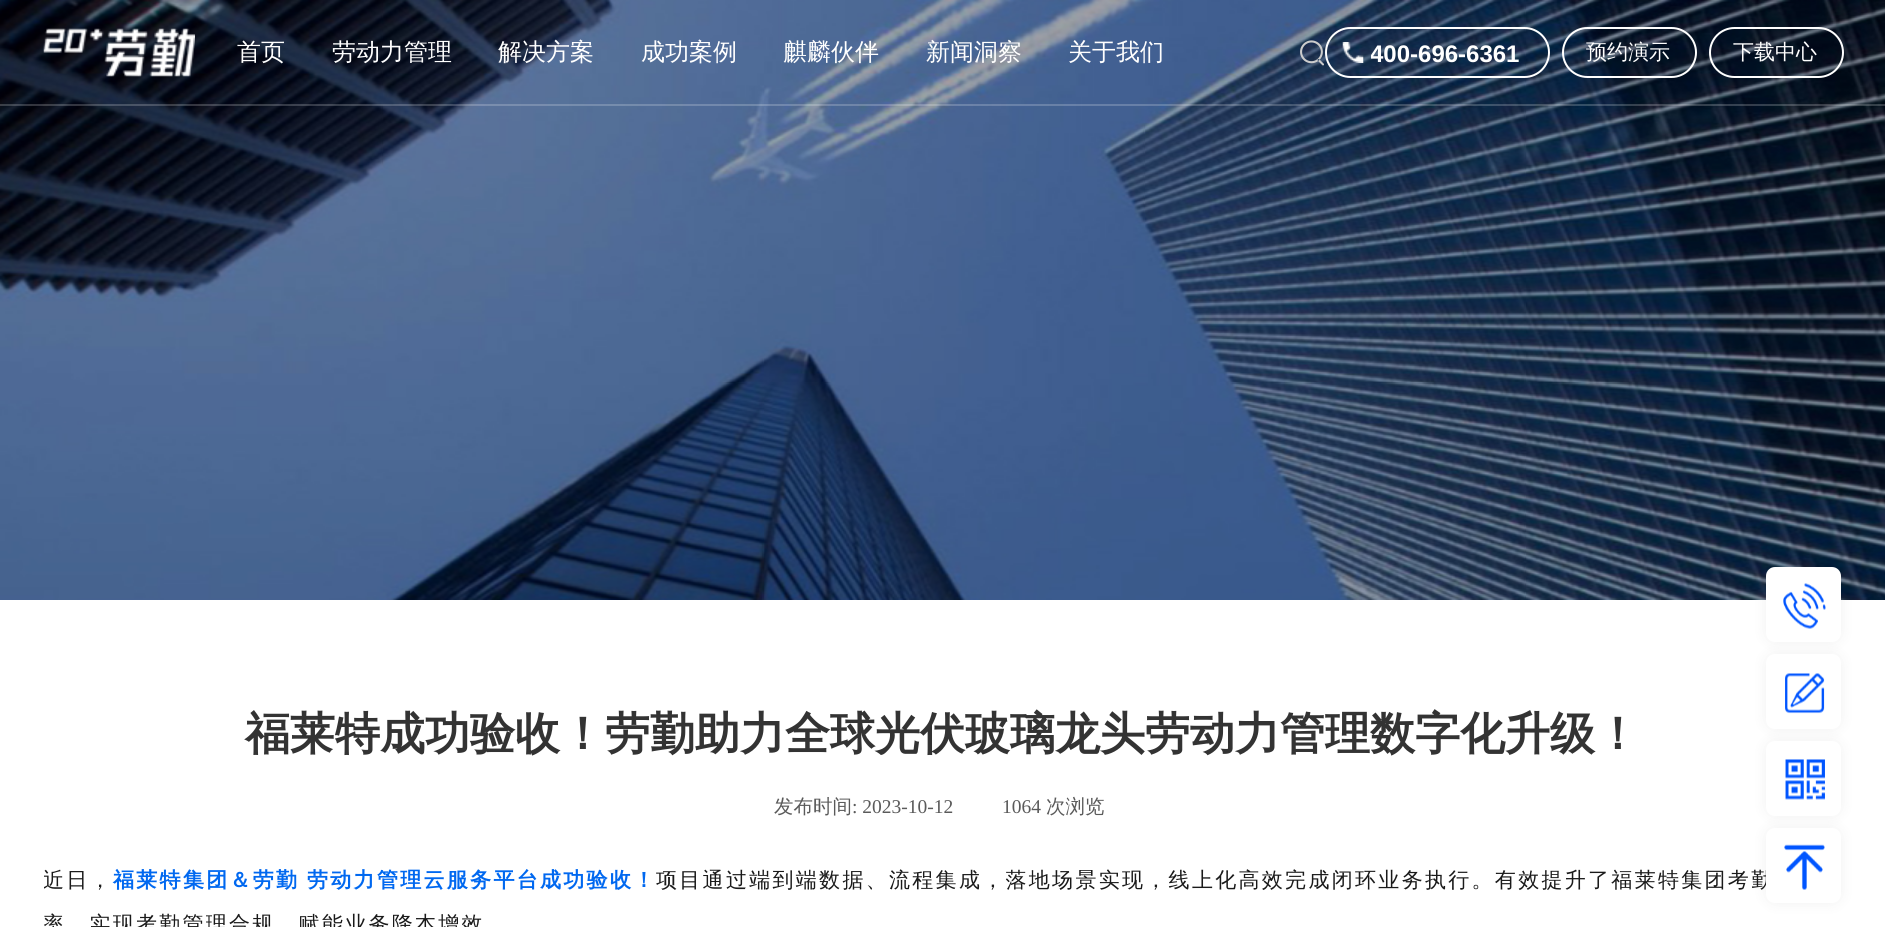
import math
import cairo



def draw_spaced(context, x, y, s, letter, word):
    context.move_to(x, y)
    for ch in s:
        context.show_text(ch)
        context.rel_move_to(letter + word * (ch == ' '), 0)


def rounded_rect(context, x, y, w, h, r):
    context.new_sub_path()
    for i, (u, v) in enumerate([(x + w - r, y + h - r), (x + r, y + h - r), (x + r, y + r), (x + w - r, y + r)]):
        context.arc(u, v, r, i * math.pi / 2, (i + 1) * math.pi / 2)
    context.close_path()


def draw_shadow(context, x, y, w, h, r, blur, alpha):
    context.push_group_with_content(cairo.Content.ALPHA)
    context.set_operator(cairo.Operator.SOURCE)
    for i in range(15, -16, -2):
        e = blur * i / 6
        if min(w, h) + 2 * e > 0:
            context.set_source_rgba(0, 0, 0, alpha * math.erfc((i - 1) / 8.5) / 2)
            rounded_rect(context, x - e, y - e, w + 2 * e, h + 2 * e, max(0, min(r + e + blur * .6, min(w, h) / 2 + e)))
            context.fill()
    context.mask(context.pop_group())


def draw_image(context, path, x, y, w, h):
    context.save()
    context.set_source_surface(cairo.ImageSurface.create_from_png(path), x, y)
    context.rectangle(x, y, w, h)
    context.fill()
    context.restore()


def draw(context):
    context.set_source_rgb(1, 1, 1)
    context.paint()
    draw_image(context, "images/1.png", 0, 0, 1885, 600)
    draw_image(context, "images/2.png", 43, 28, 152, 49)
    draw_image(context, "images/3.png", 1300, 40, 24, 26)
    rounded_rect(context, 1326, 28, 223, 49, 24.5)
    context.set_source_rgb(1, 1, 1)
    context.stroke()
    draw_image(context, "images/4.png", 1342, 42, 22, 21)
    rounded_rect(context, 1563, 28, 133, 49, 24.5)
    context.stroke()
    rounded_rect(context, 1710, 28, 133, 49, 24.5)
    context.stroke()
    context.set_source_rgba(1, 1, 1, 0.2)
    context.rectangle(0, 104, 1885, 2)
    context.fill()
    context.set_source_rgb(6 / 255, 6 / 255, 6 / 255)
    draw_shadow(context, 1766, 567, 75, 75, 9, 7.5, 0.06)
    context.set_source_rgb(1, 1, 1)
    rounded_rect(context, 1766, 567, 75, 75, 9)
    context.fill()
    draw_image(context, "images/5.png", 1783, 583, 43, 46)
    context.set_source_rgb(6 / 255, 6 / 255, 6 / 255)
    draw_shadow(context, 1766, 654, 75, 75, 9, 7.5, 0.06)
    context.set_source_rgb(1, 1, 1)
    rounded_rect(context, 1766, 654, 75, 75, 9)
    context.fill()
    draw_image(context, "images/6.png", 1785, 673, 40, 41)
    context.set_source_rgb(6 / 255, 6 / 255, 6 / 255)
    draw_shadow(context, 1766, 741, 75, 75, 9, 7.5, 0.06)
    context.set_source_rgb(1, 1, 1)
    rounded_rect(context, 1766, 741, 75, 75, 9)
    context.fill()
    draw_image(context, "images/7.png", 1785, 759, 40, 41)
    context.set_source_rgb(6 / 255, 6 / 255, 6 / 255)
    draw_shadow(context, 1766, 828, 75, 75, 9, 7.5, 0.06)
    context.select_font_face("WenQuanYi Zen Hei Medium")
    context.set_font_size(24)
    context.set_source_rgb(1, 1, 1)
    context.move_to(237, 60)
    context.show_text("首页")
    context.move_to(332, 60)
    context.show_text("劳动力管理")
    context.move_to(498, 60)
    context.show_text("解决方案")
    context.move_to(641, 60)
    context.show_text("成功案例")
    context.move_to(783, 60)
    context.show_text("麒麟伙伴")
    context.move_to(926, 60)
    context.show_text("新闻洞察")
    context.move_to(1068, 60)
    context.show_text("关于我们")
    context.save()
    context.rectangle(1371, 38, 174, 37)
    context.clip()
    context.select_font_face("Liberation Sans", cairo.FontSlant.NORMAL, cairo.FontWeight.BOLD)
    context.move_to(1370, 62)
    context.show_text("400-696-6361")
    context.restore()
    context.set_font_size(21)
    context.move_to(1586, 59)
    context.show_text("预约演示")
    context.move_to(1733, 59)
    context.show_text("下载中心")
    context.select_font_face("WenQuanYi Zen Hei", cairo.FontSlant.NORMAL, cairo.FontWeight.BOLD)
    context.set_font_size(45)
    context.set_source_rgb(51 / 255, 51 / 255, 51 / 255)
    context.move_to(245, 749)
    context.show_text("福莱特成功验收！劳勤助力全球光伏玻璃龙头劳动力管理数字化升级！")
    context.select_font_face("WenQuanYi Zen Hei Medium")
    context.set_font_size(19.5)
    context.set_source_rgb(90 / 255, 90 / 255, 90 / 255)
    context.move_to(774, 813)
    context.show_text("发布时间")
    context.select_font_face("Liberation Serif")
    context.move_to(852, 813)
    context.show_text(": 2023-10-12")
    context.move_to(1002, 813)
    context.show_text("1064")
    context.select_font_face("WenQuanYi Zen Hei Medium")
    context.move_to(1046, 813)
    context.show_text("次浏览")
    context.save()
    context.rectangle(44, 690, 1800, 237)
    context.clip()
    context.set_font_size(21)
    context.set_source_rgb(26 / 255, 26 / 255, 26 / 255)
    draw_spaced(context, 43, 887, "近日，", 2.25, 0)
    context.restore()
    context.select_font_face("WenQuanYi Zen Hei", cairo.FontSlant.NORMAL, cairo.FontWeight.BOLD)
    context.set_font_size(21)
    context.set_source_rgb(0, 104 / 255, 240 / 255)
    draw_spaced(context, 113, 887, "福莱特集团＆劳勤 劳动力管理云服务平台成功验收！", 2.3, -1)
    context.select_font_face("WenQuanYi Zen Hei Medium")
    context.set_source_rgb(26 / 255, 26 / 255, 26 / 255)
    draw_spaced(context, 656, 887, "项目通过端到端数据、流程集成，落地场景实现，线上化高效完成闭环业务执行。有效提升了福莱特集团考勤", 2.3, 0)
    draw_spaced(context, 43, 931, "率，实现考勤管理合规，赋能业务降本增效", 2.25, 0)
    context.set_source_rgb(1, 1, 1)
    rounded_rect(context, 1766, 828, 75, 75, 9)
    context.fill()
    draw_image(context, "images/8.png", 1784, 844, 41, 46)


surface = cairo.ImageSurface(cairo.Format.RGB24, 1885, 927)
context = cairo.Context(surface)
options = cairo.FontOptions()
options.set_hint_metrics(cairo.HintMetrics.OFF)
options.set_hint_style(cairo.HintStyle.NONE)
context.set_font_options(options)
context.set_miter_limit(4)
draw(context)
surface.write_to_png("out.png")
